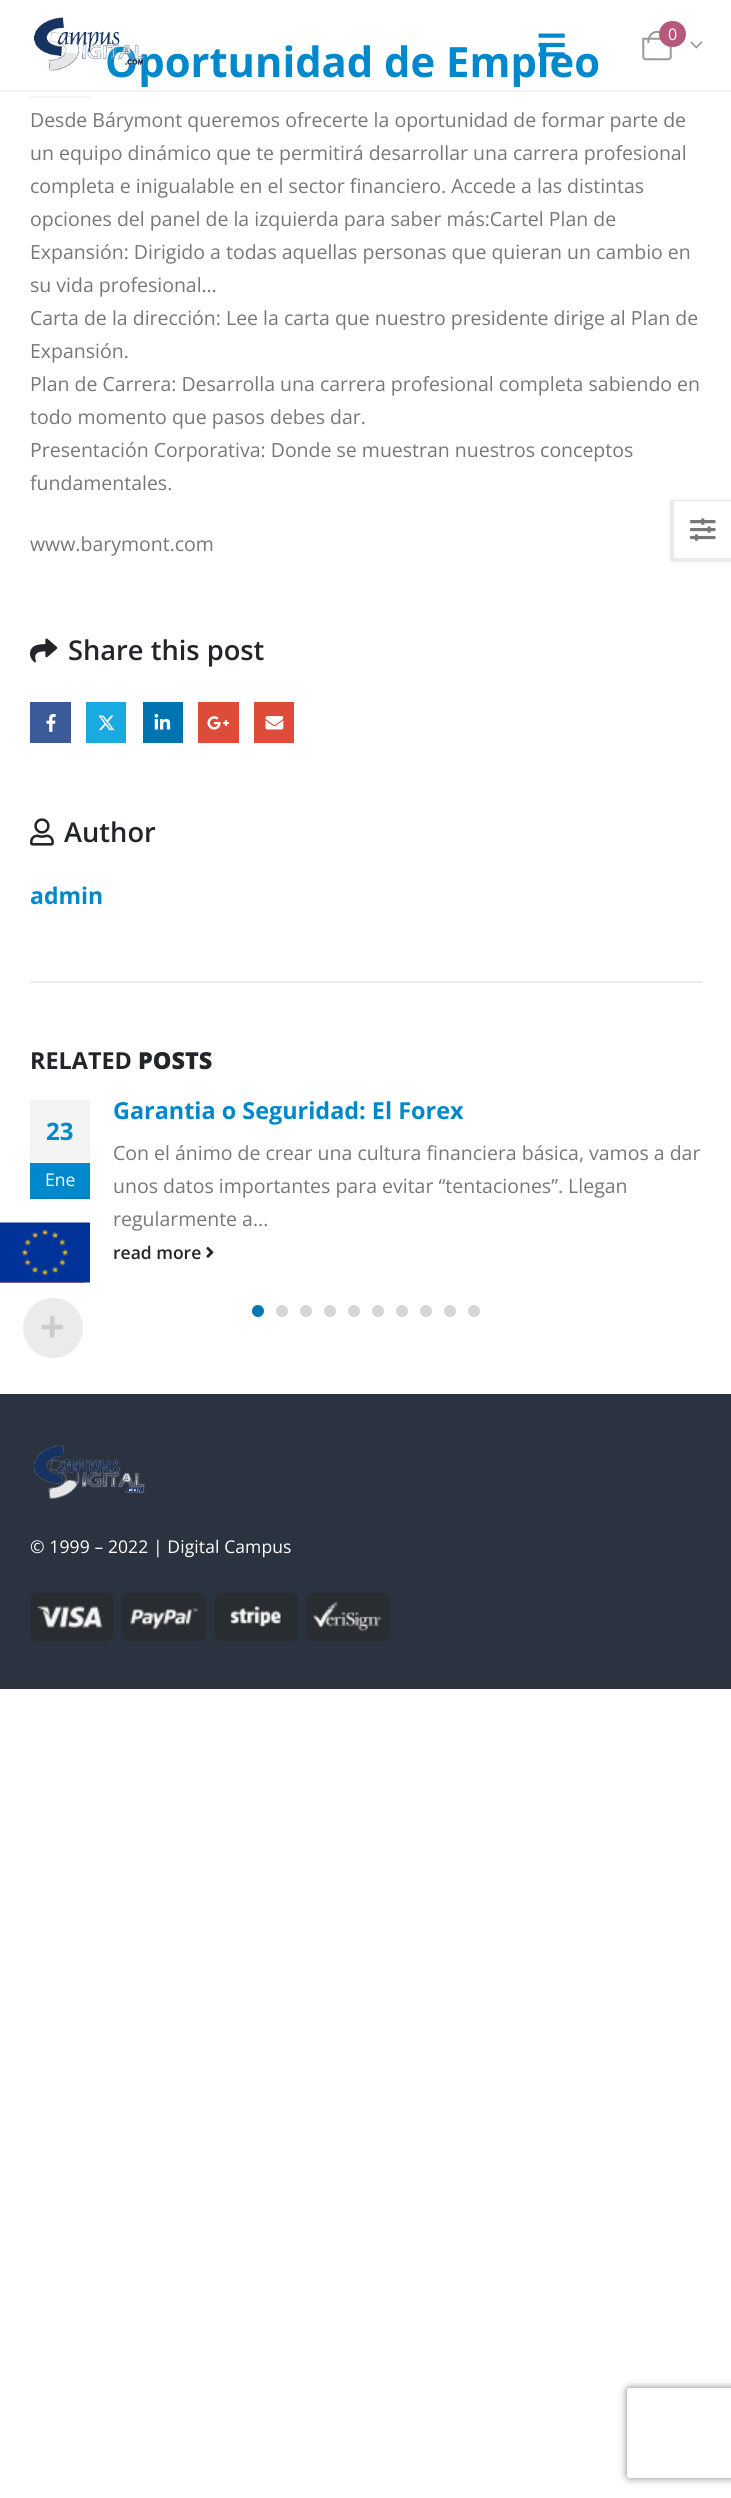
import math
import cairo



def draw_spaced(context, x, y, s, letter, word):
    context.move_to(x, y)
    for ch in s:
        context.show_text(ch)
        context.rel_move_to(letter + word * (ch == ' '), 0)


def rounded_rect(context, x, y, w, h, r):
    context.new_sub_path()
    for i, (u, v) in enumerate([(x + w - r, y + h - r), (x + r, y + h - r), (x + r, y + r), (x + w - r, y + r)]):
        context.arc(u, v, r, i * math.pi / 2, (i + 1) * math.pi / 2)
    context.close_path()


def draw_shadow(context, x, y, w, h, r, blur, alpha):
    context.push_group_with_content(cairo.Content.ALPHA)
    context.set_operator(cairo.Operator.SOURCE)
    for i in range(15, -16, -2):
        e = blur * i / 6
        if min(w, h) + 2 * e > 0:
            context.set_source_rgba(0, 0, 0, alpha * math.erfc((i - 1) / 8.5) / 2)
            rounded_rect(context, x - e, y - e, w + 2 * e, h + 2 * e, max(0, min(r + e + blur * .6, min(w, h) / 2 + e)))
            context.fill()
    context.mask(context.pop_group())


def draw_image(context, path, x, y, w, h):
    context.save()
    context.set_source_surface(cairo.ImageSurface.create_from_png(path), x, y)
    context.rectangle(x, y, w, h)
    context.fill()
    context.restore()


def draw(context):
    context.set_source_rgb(1, 1, 1)
    context.paint()
    context.set_source_rgb(244 / 255, 244 / 255, 244 / 255)
    context.rectangle(0, 90, 731, 2)
    context.fill()
    draw_image(context, "images/3.png", 642, 30, 30, 31)
    context.set_source_rgb(183 / 255, 89 / 255, 124 / 255)
    rounded_rect(context, 659, 21, 27, 26, 13)
    context.fill()
    draw_image(context, "images/4.png", 690, 41, 13, 8)
    context.set_source_rgb(244 / 255, 244 / 255, 244 / 255)
    context.rectangle(30, 96, 60, 2)
    context.fill()
    draw_image(context, "images/5.png", 30, 638, 28, 25)
    context.set_source_rgb(59 / 255, 90 / 255, 154 / 255)
    context.rectangle(30, 702, 41, 41)
    context.fill()
    draw_image(context, "images/6.png", 46, 713, 10, 19)
    context.set_source_rgb(26 / 255, 169 / 255, 225 / 255)
    context.rectangle(86, 702, 40, 41)
    context.fill()
    draw_image(context, "images/7.png", 98, 715, 17, 16)
    context.set_source_rgb(0, 115 / 255, 178 / 255)
    context.rectangle(143, 702, 40, 41)
    context.fill()
    draw_image(context, "images/8.png", 154, 714, 17, 16)
    context.set_source_rgb(221 / 255, 75 / 255, 57 / 255)
    context.rectangle(198, 702, 41, 41)
    context.fill()
    draw_image(context, "images/9.png", 207, 716, 22, 14)
    context.rectangle(254, 702, 40, 41)
    context.fill()
    draw_image(context, "images/10.png", 265, 716, 19, 14)
    draw_image(context, "images/11.png", 30, 818, 24, 28)
    context.set_source_rgb(235 / 255, 235 / 255, 235 / 255)
    context.rectangle(30, 981, 672, 2)
    context.fill()
    context.set_source_rgb(244 / 255, 244 / 255, 244 / 255)
    context.rectangle(30, 1100, 60, 63)
    context.fill()
    context.set_source_rgb(0, 136 / 255, 204 / 255)
    context.rectangle(30, 1163, 60, 34)
    context.fill()
    context.set_source_rgb(0, 126 / 255, 190 / 255)
    context.rectangle(30, 1197, 60, 2)
    context.fill()
    draw_image(context, "images/12.png", 206, 1246, 8, 12)
    context.set_source_rgb(0, 119 / 255, 179 / 255)
    context.arc(258, 1311, 6, 0, 2 * math.pi)
    context.fill()
    context.set_source_rgb(214 / 255, 214 / 255, 214 / 255)
    context.arc(282, 1311, 6, 0, 2 * math.pi)
    context.fill()
    context.arc(306, 1311, 6, 0, 2 * math.pi)
    context.fill()
    context.arc(330, 1311, 6, 0, 2 * math.pi)
    context.fill()
    context.arc(354, 1311, 6, 0, 2 * math.pi)
    context.fill()
    context.arc(378, 1311, 6, 0, 2 * math.pi)
    context.fill()
    context.arc(402, 1311, 6, 0, 2 * math.pi)
    context.fill()
    context.arc(426, 1311, 6, 0, 2 * math.pi)
    context.fill()
    context.arc(450, 1311, 6, 0, 2 * math.pi)
    context.fill()
    context.arc(474, 1311, 6, 0, 2 * math.pi)
    context.fill()
    context.set_source_rgb(0, 0, 0)
    draw_shadow(context, 671, 501, 60, 60, 0, 2, 0.15)
    context.set_source_rgb(1, 1, 1)
    context.rectangle(672, 500, 59, 60)
    context.fill()
    context.set_source_rgb(235 / 255, 235 / 255, 235 / 255)
    context.new_path()
    context.move_to(672, 500)
    context.line_to(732, 500)
    context.line_to(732, 501)
    context.line_to(674, 501)
    context.close_path()
    context.move_to(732, 560)
    context.line_to(672, 560)
    context.line_to(674, 558)
    context.line_to(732, 558)
    context.close_path()
    context.fill()
    context.set_source_rgba(0, 0, 0, 0.08)
    context.new_path()
    context.move_to(672, 560)
    context.line_to(672, 500)
    context.line_to(674, 501)
    context.line_to(674, 558)
    context.close_path()
    context.fill()
    draw_image(context, "images/13.png", 690, 518, 26, 23)
    context.set_source_rgb(44 / 255, 51 / 255, 64 / 255)
    context.rectangle(0, 1394, 731, 295)
    context.fill()
    draw_image(context, "images/14.png", 33, 1445, 112, 54)
    draw_image(context, "images/15.png", 30, 1593, 360, 48)
    context.set_source_rgb(247 / 255, 128 / 255, 128 / 255)
    context.new_path()
    context.move_to(-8, 1223)
    context.line_to(82, 1223)
    context.curve_to(86.5, 1223, 90, 1226.5, 90, 1231)
    context.line_to(90, 1275)
    context.curve_to(90, 1279.5, 86.5, 1283, 82, 1283)
    context.line_to(-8, 1283)
    context.close_path()
    context.fill()
    draw_image(context, "images/16.png", 0, 1222, 90, 61)
    context.set_source_rgb(235 / 255, 235 / 255, 235 / 255)
    context.arc(53, 1328, 30, 0, 2 * math.pi)
    context.fill()
    context.save()
    context.set_fill_rule(cairo.FillRule.EVEN_ODD)
    context.new_path()
    context.move_to(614, 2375)
    context.line_to(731, 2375)
    context.line_to(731, 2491)
    context.line_to(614, 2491)
    context.close_path()
    context.move_to(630, 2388)
    context.line_to(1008, 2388)
    context.curve_to(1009.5, 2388, 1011, 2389.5, 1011, 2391)
    context.line_to(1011, 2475)
    context.curve_to(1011, 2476.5, 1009.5, 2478, 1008, 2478)
    context.line_to(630, 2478)
    context.curve_to(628.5, 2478, 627, 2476.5, 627, 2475)
    context.line_to(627, 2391)
    context.curve_to(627, 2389.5, 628.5, 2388, 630, 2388)
    context.close_path()
    context.clip()
    context.set_source_rgb(128 / 255, 128 / 255, 128 / 255)
    draw_shadow(context, 627, 2388, 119, 90, 3, 4, 1)
    context.restore()
    context.select_font_face("Open Sans")
    context.set_font_size(16)
    context.set_source_rgb(1, 1, 1)
    context.move_to(668, 40)
    context.show_text("0")
    context.select_font_face("Open Sans", cairo.FontSlant.NORMAL, cairo.FontWeight.BOLD)
    context.set_font_size(41.75)
    context.set_source_rgb(0, 136 / 255, 204 / 255)
    context.move_to(105, 77)
    context.show_text("Oportunidad de Empleo")
    draw_image(context, "images/2.png", 538, 33, 27, 24)
    draw_image(context, "images/1.png", 34, 17, 111, 54)
    context.select_font_face("Open Sans")
    context.set_font_size(19.5)
    context.set_source_rgb(119 / 255, 119 / 255, 119 / 255)
    context.move_to(30, 127)
    context.show_text("Desde Bárymont queremos ofrecerte la oportunidad de formar parte de")
    context.move_to(30, 160)
    context.show_text("un equipo dinámico que te permitirá desarrollar una carrera profesional")
    context.move_to(30, 193)
    context.show_text("completa e inigualable en el sector financiero. Accede a las distintas")
    context.move_to(30, 226)
    context.show_text("opciones del panel de la izquierda para saber más:Cartel Plan de")
    context.move_to(30, 259)
    context.show_text("Expansión: Dirigido a todas aquellas personas que quieran un cambio en")
    context.move_to(30, 292)
    context.show_text("su vida profesional…")
    context.move_to(30, 325)
    context.show_text("Carta de la dirección: Lee la carta que nuestro presidente dirige al Plan de")
    context.move_to(30, 358)
    context.show_text("Expansión.")
    context.move_to(30, 391)
    context.show_text("Plan de Carrera: Desarrolla una carrera profesional completa sabiendo en")
    context.move_to(30, 424)
    context.show_text("todo momento que pasos debes dar.")
    context.move_to(30, 457)
    context.show_text("Presentación Corporativa: Donde se muestran nuestros conceptos")
    context.move_to(30, 490)
    context.show_text("fundamentales.")
    context.move_to(30, 551)
    context.show_text("www.barymont.com")
    context.select_font_face("Open Sans SemiBold")
    context.set_font_size(27.25)
    context.set_source_rgb(34 / 255, 37 / 255, 41 / 255)
    context.move_to(68, 660)
    context.show_text("Share this post")
    context.move_to(64, 842)
    context.show_text("Author")
    context.select_font_face("Open Sans", cairo.FontSlant.NORMAL, cairo.FontWeight.BOLD)
    context.set_font_size(23)
    context.set_source_rgb(0, 136 / 255, 204 / 255)
    context.move_to(30, 904)
    context.show_text("admin")
    context.set_font_size(23.4)
    context.set_source_rgb(34 / 255, 37 / 255, 41 / 255)
    context.move_to(30, 1069)
    context.show_text("RELATED")
    context.select_font_face("Open Sans ExtraBold")
    context.move_to(138, 1069)
    context.show_text("POSTS")
    context.select_font_face("Open Sans", cairo.FontSlant.NORMAL, cairo.FontWeight.BOLD)
    context.set_source_rgb(0, 136 / 255, 204 / 255)
    context.move_to(113, 1119)
    context.show_text("Garantia o Seguridad: El Forex")
    context.set_font_size(24)
    context.move_to(46, 1140)
    context.show_text("23")
    context.select_font_face("Open Sans")
    context.set_font_size(17.5)
    context.set_source_rgb(1, 1, 1)
    context.move_to(45, 1186)
    context.show_text("Ene")
    context.set_font_size(19.5)
    context.set_source_rgb(119 / 255, 119 / 255, 119 / 255)
    context.move_to(113, 1160)
    context.show_text("Con el ánimo de crear una cultura financiera básica, vamos a dar")
    context.move_to(113, 1193)
    context.show_text("unos datos importantes para evitar “tentaciones”. Llegan")
    context.move_to(113, 1226)
    context.show_text("regularmente a...")
    context.select_font_face("Open Sans SemiBold")
    context.set_font_size(17.5)
    context.set_source_rgb(34 / 255, 37 / 255, 41 / 255)
    context.move_to(113, 1259)
    context.show_text("read more")
    context.select_font_face("Open Sans")
    context.set_source_rgb(1, 1, 1)
    draw_spaced(context, 30, 1553, "© 1999 – 2022 | Digital Campus", 0.1, 0)
    context.select_font_face("Liberation Sans", cairo.FontSlant.NORMAL, cairo.FontWeight.BOLD)
    context.set_font_size(42)
    context.set_source_rgb(204 / 255, 204 / 255, 204 / 255)
    context.move_to(40, 1341)
    context.show_text("+")


surface = cairo.ImageSurface(cairo.Format.RGB24, 731, 2498)
context = cairo.Context(surface)
options = cairo.FontOptions()
options.set_hint_metrics(cairo.HintMetrics.OFF)
options.set_hint_style(cairo.HintStyle.NONE)
context.set_font_options(options)
context.set_miter_limit(4)
draw(context)
surface.write_to_png("out.png")
